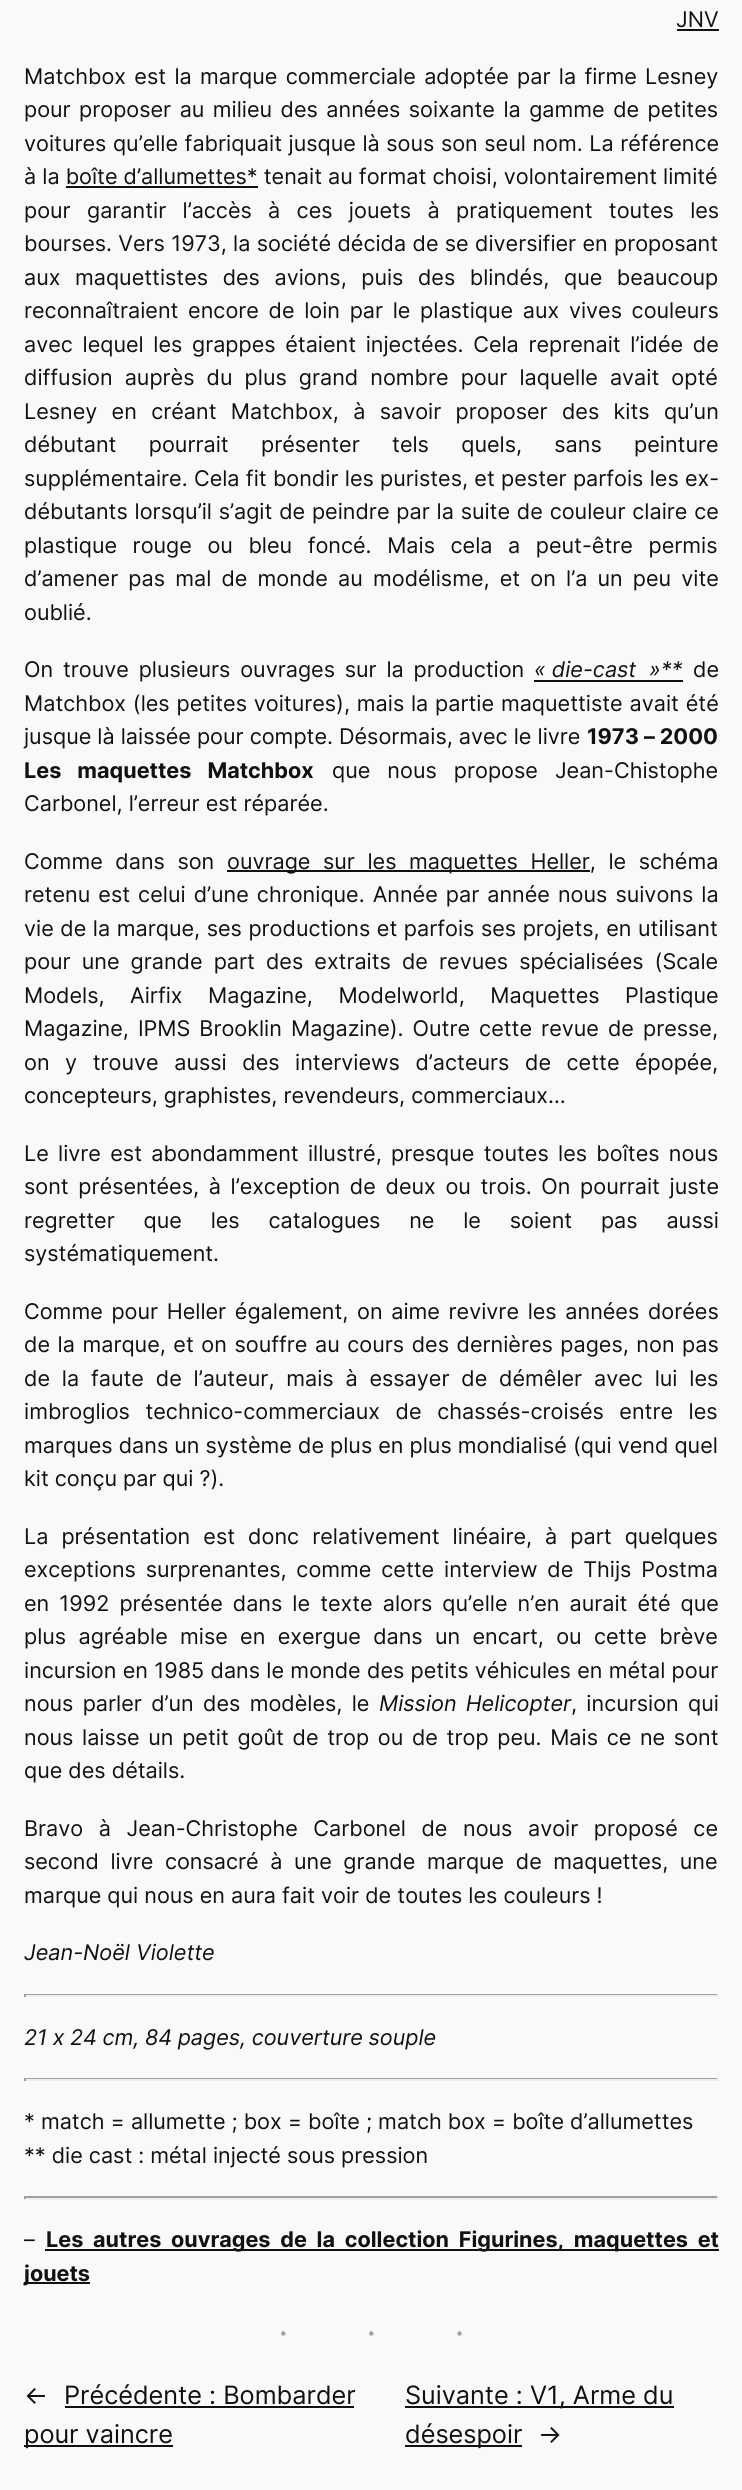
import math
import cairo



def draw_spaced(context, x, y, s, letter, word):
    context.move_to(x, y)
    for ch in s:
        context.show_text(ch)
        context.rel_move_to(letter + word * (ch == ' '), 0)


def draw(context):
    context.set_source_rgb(249 / 255, 249 / 255, 249 / 255)
    context.paint()
    context.set_source_rgb(17 / 255, 17 / 255, 17 / 255)
    context.rectangle(677, 29, 42, 2)
    context.fill()
    context.rectangle(66, 186, 192, 2)
    context.fill()
    context.rectangle(534, 680, 149, 2)
    context.fill()
    context.rectangle(227, 870, 363, 2)
    context.fill()
    context.set_source_rgb(159 / 255, 159 / 255, 159 / 255)
    context.rectangle(24, 1994, 695, 1)
    context.fill()
    context.set_source_rgb(238 / 255, 238 / 255, 238 / 255)
    context.rectangle(717, 1994, 2, 3)
    context.fill()
    context.rectangle(24, 1995, 695, 2)
    context.fill()
    context.set_source_rgb(159 / 255, 159 / 255, 159 / 255)
    context.rectangle(24, 1994, 2, 3)
    context.fill()
    context.rectangle(24, 2078, 695, 1)
    context.fill()
    context.set_source_rgb(238 / 255, 238 / 255, 238 / 255)
    context.rectangle(717, 2078, 2, 3)
    context.fill()
    context.rectangle(24, 2079, 695, 2)
    context.fill()
    context.set_source_rgb(159 / 255, 159 / 255, 159 / 255)
    context.rectangle(24, 2078, 2, 3)
    context.fill()
    context.rectangle(24, 2196, 695, 2)
    context.fill()
    context.set_source_rgb(238 / 255, 238 / 255, 238 / 255)
    context.rectangle(717, 2196, 2, 3)
    context.fill()
    context.rectangle(24, 2198, 695, 2)
    context.fill()
    context.set_source_rgb(159 / 255, 159 / 255, 159 / 255)
    context.rectangle(24, 2196, 2, 3)
    context.fill()
    context.set_source_rgb(17 / 255, 17 / 255, 17 / 255)
    context.rectangle(45, 2249, 674, 2)
    context.fill()
    context.rectangle(24, 2282, 66, 2)
    context.fill()
    context.rectangle(65, 2406, 289, 2)
    context.fill()
    context.rectangle(24, 2445, 149, 2)
    context.fill()
    context.rectangle(405, 2406, 269, 2)
    context.fill()
    context.rectangle(405, 2445, 117, 2)
    context.fill()
    context.select_font_face("Inter")
    context.set_font_size(21.6)
    context.move_to(676, 27)
    context.show_text("JNV")
    draw_spaced(context, 24, 84, "Matchbox est la marque commerciale adoptée par la firme Lesney", 0, 2.25)
    draw_spaced(context, 24, 117, "pour proposer au milieu des années soixante la gamme de petites", 0, 2.4)
    draw_spaced(context, 24, 151, "voitures qu’elle fabriquait jusque là sous son seul nom. La référence", 0, 0.5)
    context.move_to(24, 184)
    context.show_text("à la boîte d’allumettes* tenait au format choisi, volontairement limité")
    draw_spaced(context, 24, 218, "pour garantir l’accès à ces jouets à pratiquement toutes les", 0, 10.25)
    draw_spaced(context, 24, 251, "bourses. Vers 1973, la société décida de se diversifier en proposant", 0, 0.25)
    draw_spaced(context, 24, 285, "aux maquettistes des avions, puis des blindés, que beaucoup", 0, 8.5)
    draw_spaced(context, 24, 318, "reconnaîtraient encore de loin par le plastique aux vives couleurs", 0, 3.6)
    draw_spaced(context, 24, 352, "avec lequel les grappes étaient injectées. Cela reprenait l’idée de", 0, 3.6)
    draw_spaced(context, 24, 385, "diffusion auprès du plus grand nombre pour laquelle avait opté", 0, 6)
    draw_spaced(context, 24, 419, "Lesney en créant Matchbox, à savoir proposer des kits qu’un", 0, 8.25)
    draw_spaced(context, 24, 452, "débutant pourrait présenter tels quels, sans peinture", 0, 26.25)
    draw_spaced(context, 24, 486, "supplémentaire. Cela fit bondir les puristes, et pester parfois les ex-", 0, 0.25)
    draw_spaced(context, 24, 519, "débutants lorsqu’il s’agit de peindre par la suite de couleur claire ce", 0, 0.75)
    draw_spaced(context, 24, 553, "plastique rouge ou bleu foncé. Mais cela a peut-être permis", 0, 9.5)
    draw_spaced(context, 24, 586, "d’amener pas mal de monde au modélisme, et on l’a un peu vite", 0, 4.1)
    context.move_to(24, 620)
    context.show_text("oublié.")
    draw_spaced(context, 24, 677, "On trouve plusieurs ouvrages sur la production", 0, 3.75)
    context.select_font_face("Inter", cairo.FontSlant.ITALIC)
    context.move_to(534, 677)
    context.show_text("« die-cast")
    context.move_to(649, 677)
    context.show_text("»**")
    context.select_font_face("Inter")
    context.move_to(693, 677)
    context.show_text("de")
    draw_spaced(context, 24, 711, "Matchbox (les petites voitures), mais la partie maquettiste avait été", 0, 0.75)
    context.move_to(24, 744)
    context.show_text("jusque là laissée pour compte. Désormais, avec le livre")
    context.select_font_face("Inter", cairo.FontSlant.NORMAL, cairo.FontWeight.BOLD)
    context.move_to(587, 744)
    context.show_text("1973 – 2000")
    draw_spaced(context, 24, 778, "Les maquettes Matchbox", 0, 11)
    context.select_font_face("Inter")
    draw_spaced(context, 332, 778, "que nous propose Jean-Chistophe", 0, 11)
    context.move_to(24, 811)
    context.show_text("Carbonel, l’erreur est réparée.")
    draw_spaced(context, 24, 869, "Comme dans son", 0, 6.5)
    draw_spaced(context, 227, 869, "ouvrage sur les maquettes Heller, le schéma", 0, 6.5)
    draw_spaced(context, 24, 902, "retenu est celui d’une chronique. Année par année nous suivons la", 0, 2)
    draw_spaced(context, 24, 936, "vie de la marque, ses productions et parfois ses projets, en utilisant", 0, 0.5)
    draw_spaced(context, 24, 969, "pour une grande part des extraits de revues spécialisées (Scale", 0, 5)
    draw_spaced(context, 24, 1003, "Models, Airfix Magazine, Modelworld, Maquettes Plastique", 0, 19.5)
    draw_spaced(context, 24, 1036, "Magazine, IPMS Brooklin Magazine). Outre cette revue de presse,", 0, 3)
    draw_spaced(context, 24, 1070, "on y trouve aussi des interviews d’acteurs de cette épopée,", 0, 9.5)
    context.move_to(24, 1103)
    context.show_text("concepteurs, graphistes, revendeurs, commerciaux…")
    draw_spaced(context, 24, 1161, "Le livre est abondamment illustré, presque toutes les boîtes nous", 0, 3.25)
    draw_spaced(context, 24, 1194, "sont présentées, à l’exception de deux ou trois. On pourrait juste", 0, 3.6)
    draw_spaced(context, 24, 1228, "regretter que les catalogues ne le soient pas aussi", 0, 22.75)
    context.move_to(24, 1261)
    context.show_text("systématiquement.")
    draw_spaced(context, 24, 1319, "Comme pour Heller également, on aime revivre les années dorées", 0, 2.6)
    draw_spaced(context, 24, 1352, "de la marque, et on souffre au cours des dernières pages, non pas", 0, 1.5)
    draw_spaced(context, 24, 1386, "de la faute de l’auteur, mais à essayer de démêler avec lui les", 0, 5.75)
    draw_spaced(context, 24, 1419, "imbroglios technico-commerciaux de chassés-croisés entre les", 0, 9.5)
    context.move_to(24, 1453)
    context.show_text("marques dans un système de plus en plus mondialisé (qui vend quel")
    context.move_to(24, 1486)
    context.show_text("kit conçu par qui ?).")
    draw_spaced(context, 24, 1544, "La présentation est donc relativement linéaire, à part quelques", 0, 7)
    draw_spaced(context, 24, 1577, "exceptions surprenantes, comme cette interview de Thijs Postma", 0, 3.75)
    draw_spaced(context, 24, 1611, "en 1992 présentée dans le texte alors qu’elle n’en aurait été que", 0, 4)
    draw_spaced(context, 24, 1644, "plus agréable mise en exergue dans un encart, ou cette brève", 0, 6.25)
    draw_spaced(context, 24, 1678, "incursion en 1985 dans le monde", 0, 0.25)
    draw_spaced(context, 367, 1678, "des petits véhicules en métal pour", 0, 0.25)
    draw_spaced(context, 24, 1711, "nous parler d’un des modèles, le", 0, 3.25)
    context.select_font_face("Inter", cairo.FontSlant.ITALIC)
    draw_spaced(context, 379, 1711, "Mission Helicopter", 0, 3)
    context.select_font_face("Inter")
    draw_spaced(context, 571, 1711, ", incursion qui", 0, 3.25)
    draw_spaced(context, 24, 1745, "nous laisse un petit goût de trop ou de trop peu. Mais ce ne sont", 0, 2.6)
    context.move_to(24, 1778)
    context.show_text("que des détails.")
    draw_spaced(context, 24, 1836, "Bravo à Jean-Christophe Carbonel de nous avoir proposé ce", 0, 9.5)
    draw_spaced(context, 24, 1869, "second livre consacré à une grande marque de maquettes, une", 0, 5.5)
    context.move_to(24, 1903)
    context.show_text("marque qui nous en aura fait voir de toutes les couleurs !")
    context.select_font_face("Inter", cairo.FontSlant.ITALIC)
    context.move_to(24, 1960)
    context.show_text("Jean-Noël Violette")
    draw_spaced(context, 24, 2045, "21 x 24 cm, 84 pages, couverture souple", 0, -0.5)
    context.select_font_face("Inter")
    context.move_to(24, 2129)
    context.show_text("* match = allumette ; box = boîte ; match box = boîte d’allumettes")
    context.move_to(24, 2163)
    context.show_text("** die cast : métal injecté sous pression")
    context.move_to(24, 2247)
    context.show_text("–")
    context.select_font_face("Inter", cairo.FontSlant.NORMAL, cairo.FontWeight.BOLD)
    draw_spaced(context, 46, 2247, "Les autres ouvrages de la collection Figurines, maquettes et", 0, 4.75)
    context.move_to(24, 2281)
    context.show_text("jouets")
    context.select_font_face("Liberation Serif")
    context.set_font_size(37.75)
    context.set_source_rgb(164 / 255, 164 / 255, 164 / 255)
    draw_spaced(context, 277, 2346, "···", 75.5, 0)
    context.select_font_face("Inter")
    context.set_font_size(25.25)
    context.set_source_rgb(17 / 255, 17 / 255, 17 / 255)
    context.move_to(24, 2404)
    context.show_text("←")
    context.move_to(64, 2404)
    context.show_text("Précédente : Bombarder")
    context.move_to(24, 2443)
    context.show_text("pour vaincre")
    context.move_to(405, 2404)
    context.show_text("Suivante : V1, Arme du")
    context.move_to(405, 2443)
    context.show_text("désespoir")
    context.move_to(538, 2443)
    context.show_text("→")


surface = cairo.ImageSurface(cairo.Format.RGB24, 742, 2490)
context = cairo.Context(surface)
options = cairo.FontOptions()
options.set_hint_metrics(cairo.HintMetrics.OFF)
options.set_hint_style(cairo.HintStyle.NONE)
context.set_font_options(options)
context.set_miter_limit(4)
draw(context)
surface.write_to_png("out.png")
